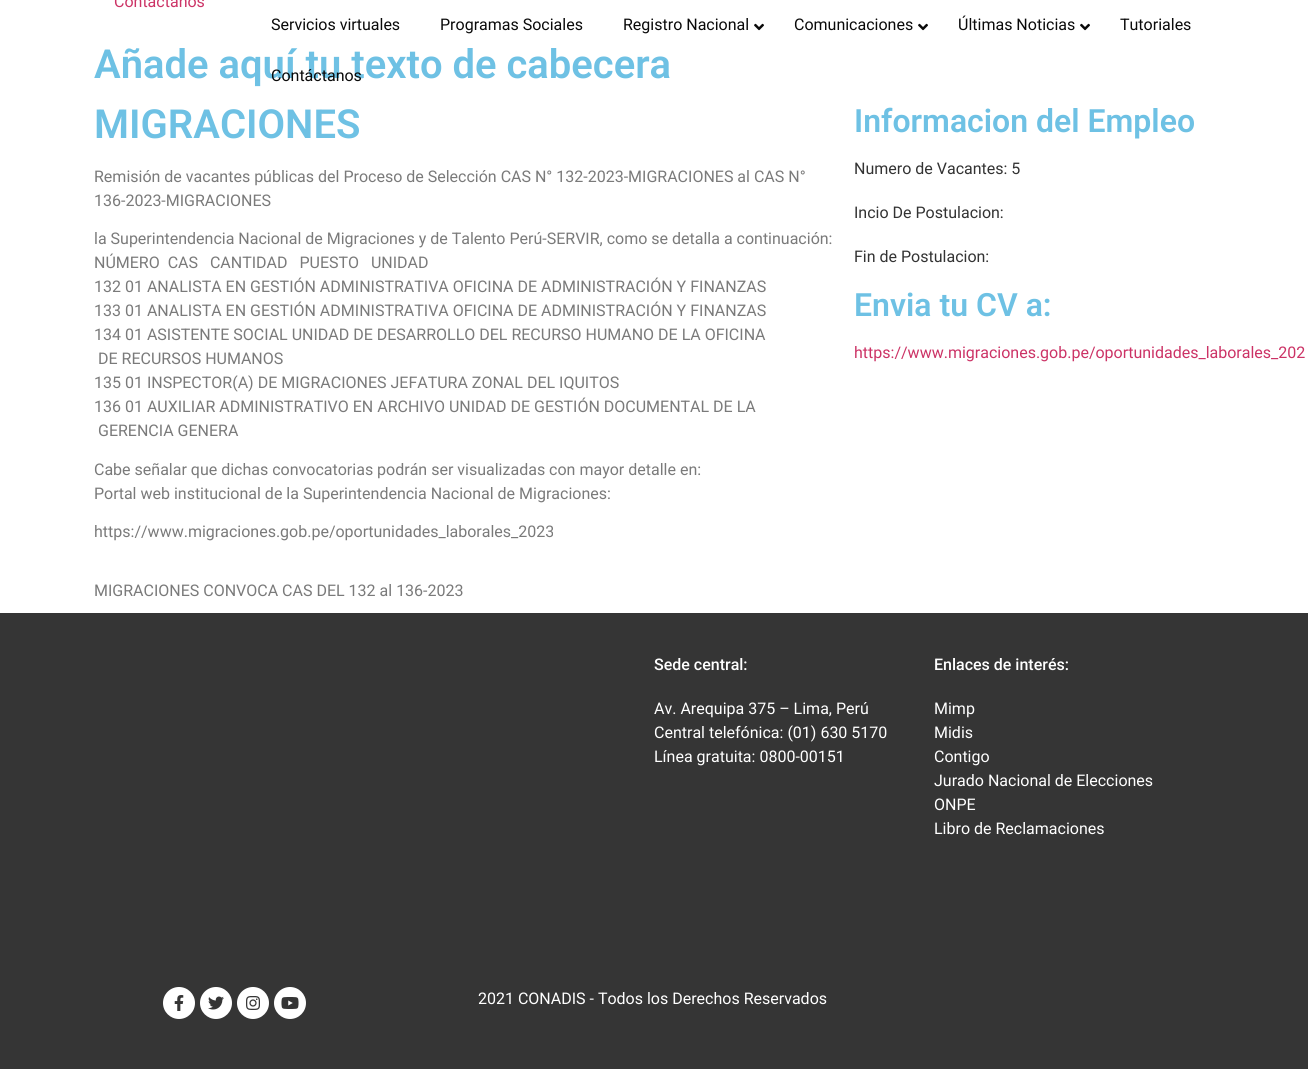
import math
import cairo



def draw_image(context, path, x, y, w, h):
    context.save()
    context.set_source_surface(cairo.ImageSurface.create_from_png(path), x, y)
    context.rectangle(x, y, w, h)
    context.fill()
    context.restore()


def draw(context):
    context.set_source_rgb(1, 1, 1)
    context.paint()
    draw_image(context, "images/1.png", 754, 23, 10, 8)
    draw_image(context, "images/1.png", 918, 23, 10, 8)
    draw_image(context, "images/1.png", 1080, 23, 10, 8)
    context.set_source_rgb(53 / 255, 53 / 255, 53 / 255)
    context.rectangle(0, 613, 1308, 456)
    context.fill()
    context.set_source_rgb(1, 1, 1)
    context.arc(179, 1003, 16, 0, 2 * math.pi)
    context.fill()
    draw_image(context, "images/2.png", 174, 995, 10, 16)
    context.arc(216, 1003, 16, 0, 2 * math.pi)
    context.fill()
    draw_image(context, "images/3.png", 208, 996, 16, 14)
    context.arc(253, 1003, 16, 0, 2 * math.pi)
    context.fill()
    draw_image(context, "images/4.png", 246, 996, 14, 14)
    context.arc(290, 1003, 16, 0, 2 * math.pi)
    context.fill()
    draw_image(context, "images/5.png", 281, 997, 18, 12)
    context.select_font_face("Roboto")
    context.set_font_size(16)
    context.set_source_rgb(204 / 255, 51 / 255, 102 / 255)
    context.move_to(114, 7)
    context.show_text("Contáctanos")
    context.set_source_rgb(10 / 255, 10 / 255, 10 / 255)
    context.move_to(271, 30)
    context.show_text("Servicios virtuales")
    context.move_to(440, 30)
    context.show_text("Programas Sociales")
    context.move_to(623, 30)
    context.show_text("Registro Nacional")
    context.move_to(794, 30)
    context.show_text("Comunicaciones")
    context.move_to(958, 30)
    context.show_text("Últimas Noticias")
    context.move_to(1120, 30)
    context.show_text("Tutoriales")
    context.select_font_face("Roboto SemiBold")
    context.set_font_size(40)
    context.set_source_rgb(110 / 255, 193 / 255, 228 / 255)
    context.move_to(94, 78)
    context.show_text("Añade aquí tu texto de cabecera")
    context.select_font_face("Roboto")
    context.set_font_size(16)
    context.set_source_rgb(10 / 255, 10 / 255, 10 / 255)
    context.move_to(271, 81)
    context.show_text("Contáctanos")
    context.select_font_face("Roboto SemiBold")
    context.set_font_size(40)
    context.set_source_rgb(110 / 255, 193 / 255, 228 / 255)
    context.move_to(94, 138)
    context.show_text("MIGRACIONES")
    context.select_font_face("Roboto")
    context.set_font_size(16)
    context.set_source_rgb(122 / 255, 122 / 255, 122 / 255)
    context.move_to(94, 182)
    context.show_text("Remisión de vacantes públicas del Proceso de Selección CAS N° 132-2023-MIGRACIONES al CAS N°")
    context.move_to(94, 206)
    context.show_text("136-2023-MIGRACIONES")
    context.move_to(94, 244)
    context.show_text("la Superintendencia Nacional de Migraciones y de Talento Perú-SERVIR, como se detalla a continuación:")
    context.move_to(94, 268)
    context.show_text("NÚMERO  CAS   CANTIDAD   PUESTO   UNIDAD")
    context.move_to(94, 292)
    context.show_text("132 01 ANALISTA EN GESTIÓN ADMINISTRATIVA OFICINA DE ADMINISTRACIÓN Y FINANZAS")
    context.move_to(94, 316)
    context.show_text("133 01 ANALISTA EN GESTIÓN ADMINISTRATIVA OFICINA DE ADMINISTRACIÓN Y FINANZAS")
    context.move_to(94, 340)
    context.show_text("134 01 ASISTENTE SOCIAL UNIDAD DE DESARROLLO DEL RECURSO HUMANO DE LA OFICINA")
    context.move_to(98, 364)
    context.show_text("DE RECURSOS HUMANOS")
    context.move_to(94, 388)
    context.show_text("135 01 INSPECTOR(A) DE MIGRACIONES JEFATURA ZONAL DEL IQUITOS")
    context.move_to(94, 412)
    context.show_text("136 01 AUXILIAR ADMINISTRATIVO EN ARCHIVO UNIDAD DE GESTIÓN DOCUMENTAL DE LA")
    context.move_to(98, 436)
    context.show_text("GERENCIA GENERA")
    context.move_to(94, 475)
    context.show_text("Cabe señalar que dichas convocatorias podrán ser visualizadas con mayor detalle en:")
    context.move_to(94, 499)
    context.show_text("Portal web institucional de la Superintendencia Nacional de Migraciones:")
    context.move_to(94, 537)
    context.show_text("https://www.migraciones.gob.pe/oportunidades_laborales_2023")
    context.move_to(94, 596)
    context.show_text("MIGRACIONES CONVOCA CAS DEL 132 al 136-2023")
    context.select_font_face("Roboto SemiBold")
    context.set_font_size(32)
    context.set_source_rgb(110 / 255, 193 / 255, 228 / 255)
    context.move_to(854, 132)
    context.show_text("Informacion del Empleo")
    context.select_font_face("Roboto")
    context.set_font_size(16)
    context.set_source_rgb(51 / 255, 51 / 255, 51 / 255)
    context.move_to(854, 174)
    context.show_text("Numero de Vacantes: 5")
    context.move_to(854, 218)
    context.show_text("Incio De Postulacion:")
    context.move_to(854, 262)
    context.show_text("Fin de Postulacion:")
    context.select_font_face("Roboto SemiBold")
    context.set_font_size(32)
    context.set_source_rgb(110 / 255, 193 / 255, 228 / 255)
    context.move_to(854, 316)
    context.show_text("Envia tu CV a:")
    context.select_font_face("Roboto")
    context.set_font_size(16)
    context.set_source_rgb(204 / 255, 51 / 255, 102 / 255)
    context.move_to(854, 358)
    context.show_text("https://www.migraciones.gob.pe/oportunidades_laborales_202")
    context.select_font_face("Roboto Medium")
    context.set_source_rgb(1, 1, 1)
    context.move_to(654, 670)
    context.show_text("Sede central:")
    context.select_font_face("Roboto")
    context.move_to(654, 714)
    context.show_text("Av. Arequipa 375 – Lima, Perú")
    context.move_to(654, 738)
    context.show_text("Central telefónica: (01) 630 5170")
    context.move_to(654, 762)
    context.show_text("Línea gratuita: 0800-00151")
    context.select_font_face("Roboto Medium")
    context.move_to(934, 670)
    context.show_text("Enlaces de interés:")
    context.select_font_face("Roboto")
    context.move_to(934, 714)
    context.show_text("Mimp")
    context.move_to(934, 738)
    context.show_text("Midis")
    context.move_to(934, 762)
    context.show_text("Contigo")
    context.move_to(934, 786)
    context.show_text("Jurado Nacional de Elecciones")
    context.move_to(934, 810)
    context.show_text("ONPE")
    context.move_to(934, 834)
    context.show_text("Libro de Reclamaciones")
    context.move_to(478, 1004)
    context.show_text("2021 CONADIS - Todos los Derechos Reservados")


surface = cairo.ImageSurface(cairo.Format.RGB24, 1308, 1069)
context = cairo.Context(surface)
options = cairo.FontOptions()
options.set_hint_metrics(cairo.HintMetrics.OFF)
options.set_hint_style(cairo.HintStyle.NONE)
context.set_font_options(options)
context.set_miter_limit(4)
draw(context)
surface.write_to_png("out.png")
